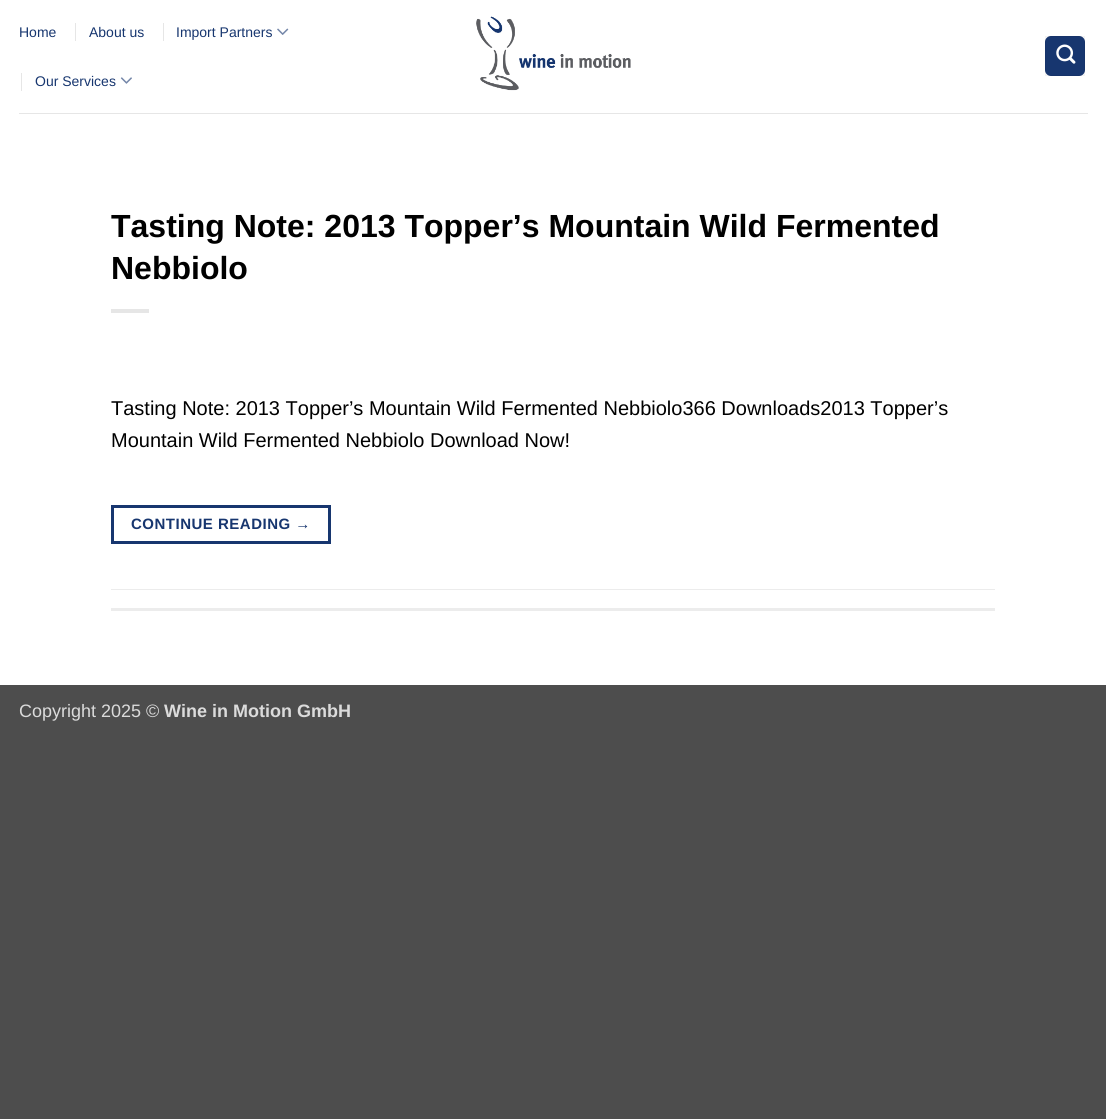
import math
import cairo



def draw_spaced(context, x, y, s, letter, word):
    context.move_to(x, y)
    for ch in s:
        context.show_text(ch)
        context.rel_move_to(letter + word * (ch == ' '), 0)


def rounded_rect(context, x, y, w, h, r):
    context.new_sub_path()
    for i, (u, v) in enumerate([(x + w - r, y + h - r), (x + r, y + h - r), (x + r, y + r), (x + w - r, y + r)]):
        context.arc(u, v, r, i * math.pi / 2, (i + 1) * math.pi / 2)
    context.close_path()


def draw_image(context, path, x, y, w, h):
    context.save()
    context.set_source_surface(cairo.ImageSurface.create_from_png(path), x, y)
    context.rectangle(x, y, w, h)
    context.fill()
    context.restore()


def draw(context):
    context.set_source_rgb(77 / 255, 77 / 255, 77 / 255)
    context.paint()
    context.set_source_rgb(1, 1, 1)
    context.rectangle(0, 0, 1106, 685)
    context.fill()
    context.set_source_rgb(230 / 255, 230 / 255, 230 / 255)
    context.rectangle(75, 23, 1, 18)
    context.fill()
    context.rectangle(163, 23, 1, 18)
    context.fill()
    draw_image(context, "images/1.png", 277, 28, 12, 7)
    context.rectangle(21, 73, 1, 18)
    context.fill()
    draw_image(context, "images/2.png", 120, 77, 12, 7)
    draw_image(context, "images/3.png", 476, 16, 155, 75)
    context.set_source_rgb(23 / 255, 54 / 255, 111 / 255)
    rounded_rect(context, 1045, 36, 40, 40, 6)
    context.fill()
    context.rectangle(1045.5, 36.5, 39, 39)
    context.set_source_rgba(0, 0, 0, 0.05)
    context.set_line_width(1)
    context.stroke()
    draw_image(context, "images/4.png", 1056, 44, 20, 20)
    context.set_source_rgb(230 / 255, 230 / 255, 230 / 255)
    context.rectangle(19, 113, 1069, 1)
    context.fill()
    context.rectangle(111, 309, 38, 4)
    context.fill()
    context.rectangle(112.5, 506.5, 217, 36)
    context.set_source_rgb(23 / 255, 54 / 255, 111 / 255)
    context.set_line_width(3)
    context.stroke()
    context.set_source_rgb(236 / 255, 236 / 255, 236 / 255)
    context.rectangle(111, 589, 884, 1)
    context.fill()
    context.rectangle(111, 608, 884, 3)
    context.fill()
    context.select_font_face("Liberation Sans")
    context.set_font_size(14)
    context.set_source_rgb(23 / 255, 54 / 255, 111 / 255)
    context.move_to(19, 37)
    context.show_text("Home")
    context.move_to(89, 37)
    context.show_text("About us")
    context.move_to(176, 37)
    context.show_text("Import Partners")
    context.move_to(35, 86)
    context.show_text("Our Services")
    context.select_font_face("Liberation Sans", cairo.FontSlant.NORMAL, cairo.FontWeight.BOLD)
    context.set_font_size(32)
    context.set_source_rgb(0, 0, 0)
    context.move_to(111, 237)
    context.show_text("Tasting Note: 2013 Topper’s Mountain Wild Fermented")
    context.move_to(111, 279)
    context.show_text("Nebbiolo")
    context.select_font_face("Liberation Sans")
    context.set_font_size(20)
    context.move_to(111, 415)
    context.show_text("Tasting Note: 2013 Topper’s Mountain Wild Fermented Nebbiolo366 Downloads2013 Topper’s")
    context.move_to(111, 447)
    context.show_text("Mountain Wild Fermented Nebbiolo Download Now!")
    context.select_font_face("Liberation Sans", cairo.FontSlant.NORMAL, cairo.FontWeight.BOLD)
    context.set_font_size(15)
    context.set_source_rgb(23 / 255, 54 / 255, 111 / 255)
    draw_spaced(context, 131, 529, "CONTINUE READING →", 0.5, 0)
    context.select_font_face("Liberation Sans")
    context.set_font_size(18)
    context.set_source_rgb(219 / 255, 219 / 255, 219 / 255)
    context.move_to(19, 717)
    context.show_text("Copyright 2025 ©")
    context.select_font_face("Liberation Sans", cairo.FontSlant.NORMAL, cairo.FontWeight.BOLD)
    context.move_to(164, 717)
    context.show_text("Wine in Motion GmbH")


surface = cairo.ImageSurface(cairo.Format.RGB24, 1106, 1119)
context = cairo.Context(surface)
options = cairo.FontOptions()
options.set_hint_metrics(cairo.HintMetrics.OFF)
options.set_hint_style(cairo.HintStyle.NONE)
context.set_font_options(options)
context.set_miter_limit(4)
draw(context)
surface.write_to_png("out.png")
